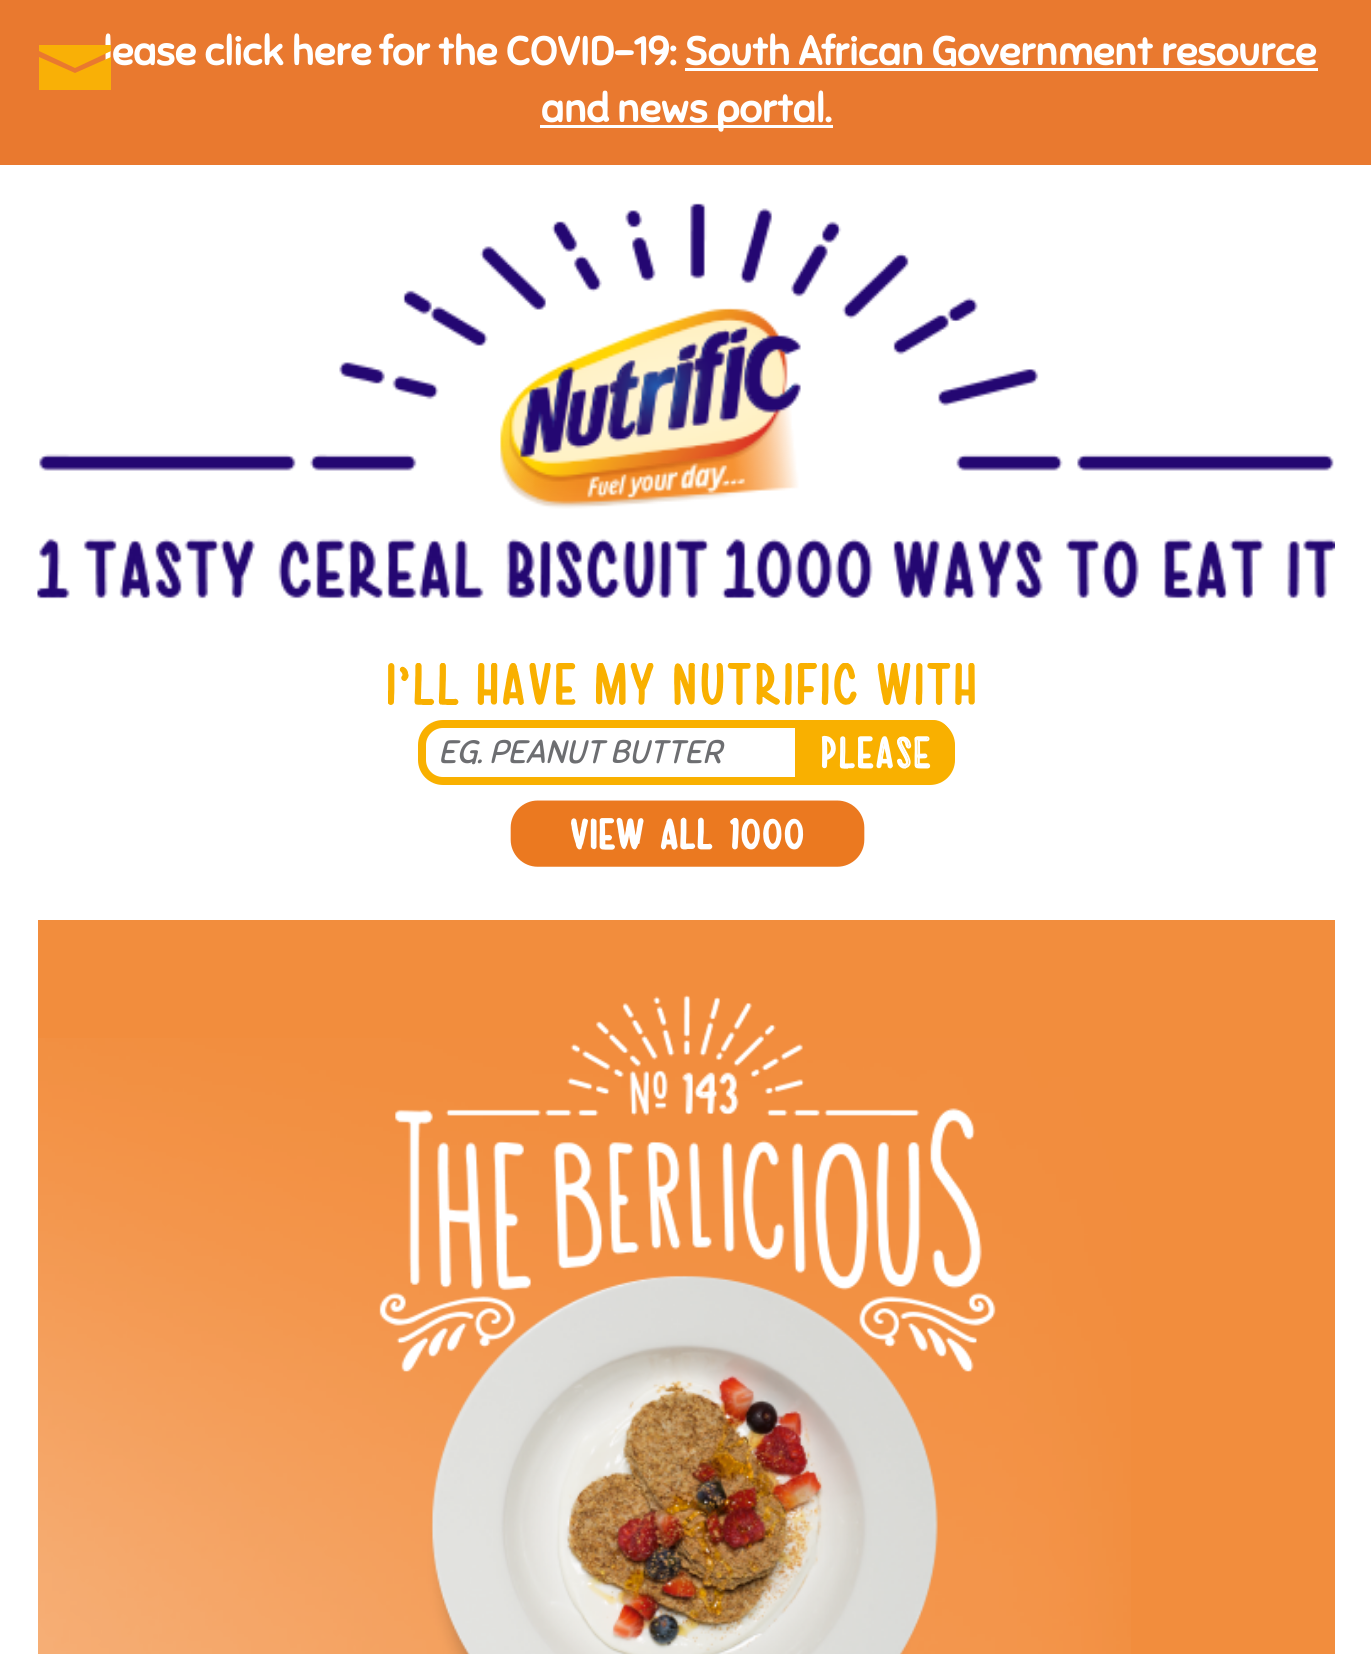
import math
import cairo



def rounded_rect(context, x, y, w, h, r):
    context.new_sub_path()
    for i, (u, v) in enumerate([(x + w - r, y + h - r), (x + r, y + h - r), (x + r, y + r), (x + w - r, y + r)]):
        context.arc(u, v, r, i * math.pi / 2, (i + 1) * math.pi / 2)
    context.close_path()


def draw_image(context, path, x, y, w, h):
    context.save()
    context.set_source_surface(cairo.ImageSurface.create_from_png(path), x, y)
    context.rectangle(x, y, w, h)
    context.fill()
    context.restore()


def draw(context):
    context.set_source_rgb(1, 1, 1)
    context.paint()
    context.set_source_rgb(233 / 255, 121 / 255, 47 / 255)
    context.rectangle(0, 0, 1371, 165)
    context.fill()
    context.set_source_rgb(1, 1, 1)
    context.rectangle(685, 68, 633, 3)
    context.fill()
    context.rectangle(540, 125, 293, 3)
    context.fill()
    draw_image(context, "images/1.png", 37, 203, 1298, 396)
    draw_image(context, "images/2.png", 388, 663, 587, 42)
    rounded_rect(context, 422, 724, 529, 57, 21)
    context.set_source_rgb(249 / 255, 176 / 255, 0)
    context.set_line_width(8)
    context.stroke()
    draw_image(context, "images/3.png", 795, 720, 160, 57)
    draw_image(context, "images/4.png", 510, 800, 355, 67)
    context.set_source_rgb(242 / 255, 141 / 255, 61 / 255)
    context.rectangle(38, 920, 1297, 734)
    context.fill()
    draw_image(context, "images/5.png", 38, 1038, 1093, 616)
    draw_image(context, "images/6.png", 379, 995, 617, 659)
    context.select_font_face("Sniglet", cairo.FontSlant.NORMAL, cairo.FontWeight.BOLD)
    context.set_font_size(40)
    context.set_source_rgb(1, 1, 1)
    context.move_to(103, 65)
    context.show_text("lease click here for the COVID-19: South African Government resource")
    context.move_to(541, 122)
    context.show_text("and news portal.")
    context.set_source_rgb(249 / 255, 176 / 255, 6 / 255)
    context.new_path()
    context.move_to(39, 45)
    context.line_to(39, 51)
    context.line_to(75, 68)
    context.line_to(111, 51)
    context.line_to(111, 45)
    context.close_path()
    context.fill()
    context.new_path()
    context.move_to(75, 73)
    context.line_to(39, 57)
    context.line_to(39, 90)
    context.line_to(111, 90)
    context.line_to(111, 57)
    context.close_path()
    context.fill()
    context.select_font_face("Sniglet", cairo.FontSlant.ITALIC)
    context.set_font_size(32.5)
    context.set_source_rgb(109 / 255, 110 / 255, 113 / 255)
    context.move_to(438, 763)
    context.show_text("EG. PEANUT BUTTER")


surface = cairo.ImageSurface(cairo.Format.RGB24, 1371, 1654)
context = cairo.Context(surface)
options = cairo.FontOptions()
options.set_hint_metrics(cairo.HintMetrics.OFF)
options.set_hint_style(cairo.HintStyle.NONE)
context.set_font_options(options)
context.set_miter_limit(4)
draw(context)
surface.write_to_png("out.png")
